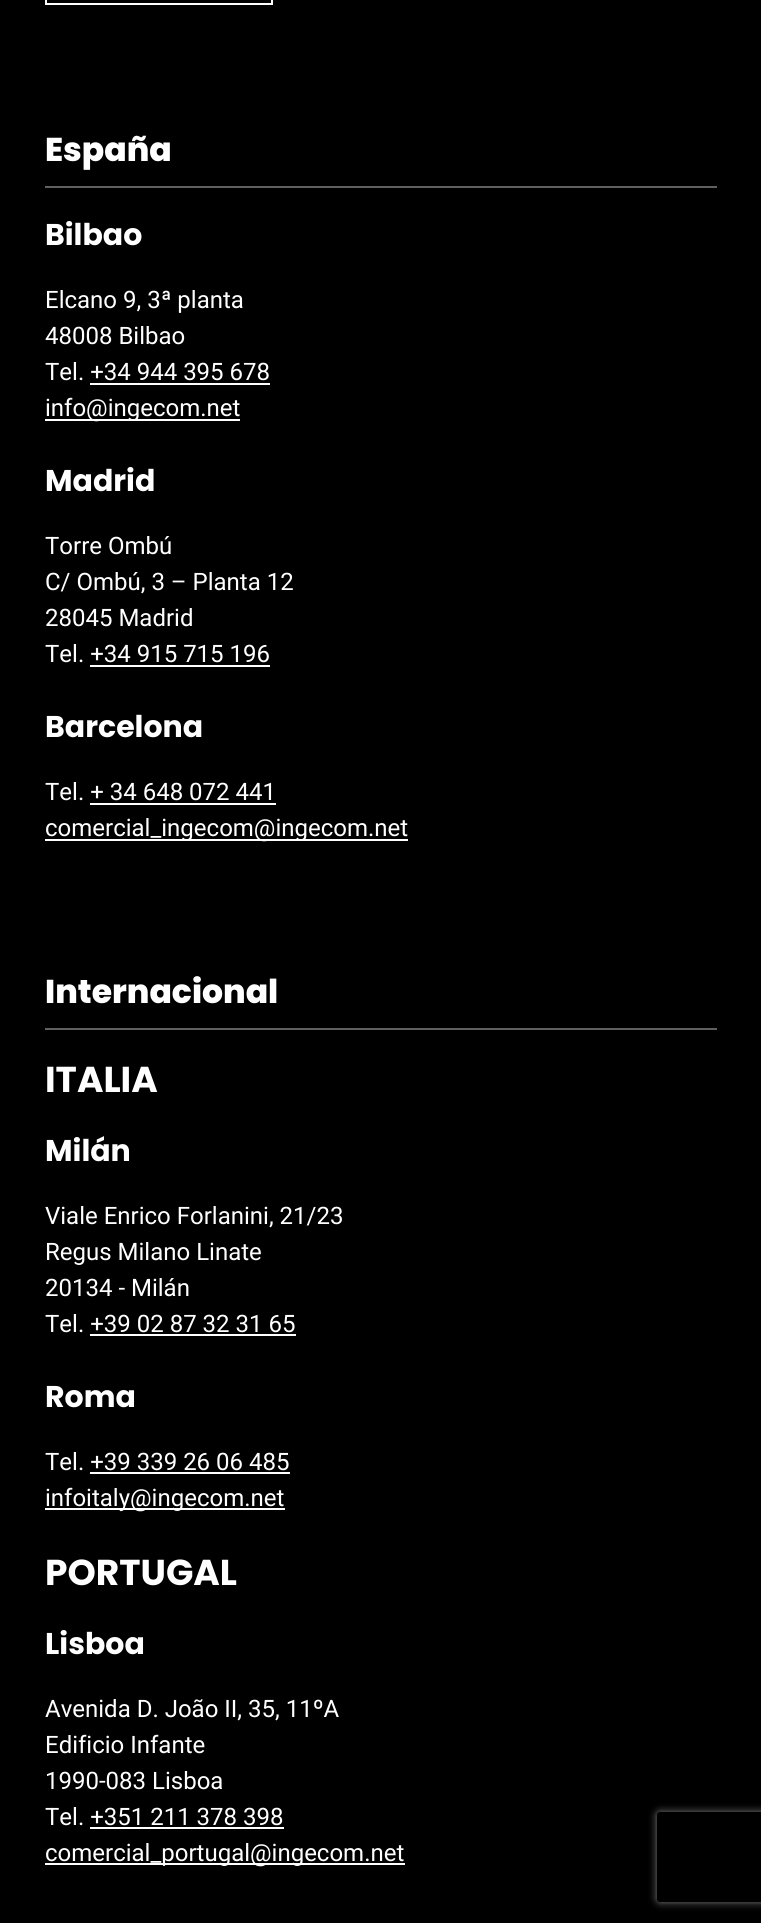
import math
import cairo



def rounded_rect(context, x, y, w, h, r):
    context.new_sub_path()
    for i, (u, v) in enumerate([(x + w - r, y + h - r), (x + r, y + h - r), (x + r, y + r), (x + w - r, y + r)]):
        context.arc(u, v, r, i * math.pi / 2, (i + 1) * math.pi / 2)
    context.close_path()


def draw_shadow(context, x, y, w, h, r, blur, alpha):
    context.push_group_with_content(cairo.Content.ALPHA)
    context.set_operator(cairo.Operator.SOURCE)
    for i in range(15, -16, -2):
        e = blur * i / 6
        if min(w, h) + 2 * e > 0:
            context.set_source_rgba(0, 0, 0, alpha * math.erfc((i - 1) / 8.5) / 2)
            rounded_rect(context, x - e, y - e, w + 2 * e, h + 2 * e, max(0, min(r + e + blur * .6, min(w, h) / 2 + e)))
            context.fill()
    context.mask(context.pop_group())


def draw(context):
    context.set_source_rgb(0, 0, 0)
    context.paint()
    context.rectangle(46, -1, 226, 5)
    context.set_source_rgb(1, 1, 1)
    context.stroke()
    context.set_source_rgb(96 / 255, 96 / 255, 96 / 255)
    context.rectangle(45, 186, 672, 2)
    context.fill()
    context.set_source_rgb(1, 1, 1)
    context.rectangle(90, 383, 180, 2)
    context.fill()
    context.rectangle(45, 419, 195, 2)
    context.fill()
    context.rectangle(90, 665, 180, 2)
    context.fill()
    context.rectangle(90, 803, 186, 2)
    context.fill()
    context.rectangle(45, 839, 363, 2)
    context.fill()
    context.set_source_rgb(96 / 255, 96 / 255, 96 / 255)
    context.rectangle(45, 1028, 672, 2)
    context.fill()
    context.set_source_rgb(1, 1, 1)
    context.rectangle(90, 1334, 206, 2)
    context.fill()
    context.rectangle(90, 1472, 200, 2)
    context.fill()
    context.rectangle(45, 1508, 240, 2)
    context.fill()
    context.rectangle(90, 1827, 194, 2)
    context.fill()
    context.rectangle(45, 1863, 360, 2)
    context.fill()
    context.save()
    context.set_fill_rule(cairo.FillRule.EVEN_ODD)
    context.new_path()
    context.move_to(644, 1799)
    context.line_to(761, 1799)
    context.line_to(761, 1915)
    context.line_to(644, 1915)
    context.close_path()
    context.move_to(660, 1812)
    context.line_to(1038, 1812)
    context.curve_to(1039.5, 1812, 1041, 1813.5, 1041, 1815)
    context.line_to(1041, 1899)
    context.curve_to(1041, 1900.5, 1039.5, 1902, 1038, 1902)
    context.line_to(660, 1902)
    context.curve_to(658.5, 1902, 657, 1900.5, 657, 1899)
    context.line_to(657, 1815)
    context.curve_to(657, 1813.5, 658.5, 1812, 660, 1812)
    context.close_path()
    context.clip()
    context.set_source_rgb(128 / 255, 128 / 255, 128 / 255)
    draw_shadow(context, 657, 1812, 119, 90, 3, 4, 1)
    context.restore()
    context.select_font_face("Poppins ExtraBold")
    context.set_font_size(33)
    context.move_to(45, 161)
    context.show_text("España")
    context.select_font_face("Poppins", cairo.FontSlant.NORMAL, cairo.FontWeight.BOLD)
    context.set_font_size(30)
    context.move_to(45, 245)
    context.show_text("Bilbao")
    context.select_font_face("Roboto")
    context.set_font_size(24)
    context.move_to(45, 308)
    context.show_text("Elcano 9, 3ª planta")
    context.move_to(45, 344)
    context.show_text("48008 Bilbao")
    context.move_to(45, 380)
    context.show_text("Tel. +34 944 395 678")
    context.move_to(45, 416)
    context.show_text("info@ingecom.net")
    context.select_font_face("Poppins", cairo.FontSlant.NORMAL, cairo.FontWeight.BOLD)
    context.set_font_size(30)
    context.move_to(45, 491)
    context.show_text("Madrid")
    context.select_font_face("Roboto")
    context.set_font_size(24)
    context.move_to(45, 554)
    context.show_text("Torre Ombú")
    context.move_to(45, 590)
    context.show_text("C/ Ombú, 3 – Planta 12")
    context.move_to(45, 626)
    context.show_text("28045 Madrid")
    context.move_to(45, 662)
    context.show_text("Tel. +34 915 715 196")
    context.select_font_face("Poppins", cairo.FontSlant.NORMAL, cairo.FontWeight.BOLD)
    context.set_font_size(30)
    context.move_to(45, 737)
    context.show_text("Barcelona")
    context.select_font_face("Roboto")
    context.set_font_size(24)
    context.move_to(45, 800)
    context.show_text("Tel. + 34 648 072 441")
    context.move_to(45, 836)
    context.show_text("comercial_ingecom@ingecom.net")
    context.select_font_face("Poppins ExtraBold")
    context.set_font_size(33)
    context.move_to(45, 1003)
    context.show_text("Internacional")
    context.select_font_face("Poppins", cairo.FontSlant.NORMAL, cairo.FontWeight.BOLD)
    context.set_font_size(36)
    context.move_to(45, 1092)
    context.show_text("ITALIA")
    context.set_font_size(30)
    context.move_to(45, 1161)
    context.show_text("Milán")
    context.select_font_face("Roboto")
    context.set_font_size(24)
    context.move_to(45, 1224)
    context.show_text("Viale Enrico Forlanini, 21/23")
    context.move_to(45, 1260)
    context.show_text("Regus Milano Linate")
    context.move_to(45, 1296)
    context.show_text("20134 - Milán")
    context.move_to(45, 1332)
    context.show_text("Tel. +39 02 87 32 31 65")
    context.select_font_face("Poppins", cairo.FontSlant.NORMAL, cairo.FontWeight.BOLD)
    context.set_font_size(30)
    context.move_to(45, 1407)
    context.show_text("Roma")
    context.select_font_face("Roboto")
    context.set_font_size(24)
    context.move_to(45, 1470)
    context.show_text("Tel. +39 339 26 06 485")
    context.move_to(45, 1506)
    context.show_text("infoitaly@ingecom.net")
    context.select_font_face("Poppins", cairo.FontSlant.NORMAL, cairo.FontWeight.BOLD)
    context.set_font_size(36)
    context.move_to(45, 1585)
    context.show_text("PORTUGAL")
    context.set_font_size(30)
    context.move_to(45, 1654)
    context.show_text("Lisboa")
    context.select_font_face("Roboto")
    context.set_font_size(24)
    context.move_to(45, 1717)
    context.show_text("Avenida D. João II, 35, 11ºA")
    context.move_to(45, 1753)
    context.show_text("Edificio Infante")
    context.move_to(45, 1789)
    context.show_text("1990-083 Lisboa")
    context.move_to(45, 1825)
    context.show_text("Tel. +351 211 378 398")
    context.move_to(45, 1861)
    context.show_text("comercial_portugal@ingecom.net")


surface = cairo.ImageSurface(cairo.Format.RGB24, 761, 1923)
context = cairo.Context(surface)
options = cairo.FontOptions()
options.set_hint_metrics(cairo.HintMetrics.OFF)
options.set_hint_style(cairo.HintStyle.NONE)
context.set_font_options(options)
context.set_miter_limit(4)
draw(context)
surface.write_to_png("out.png")
